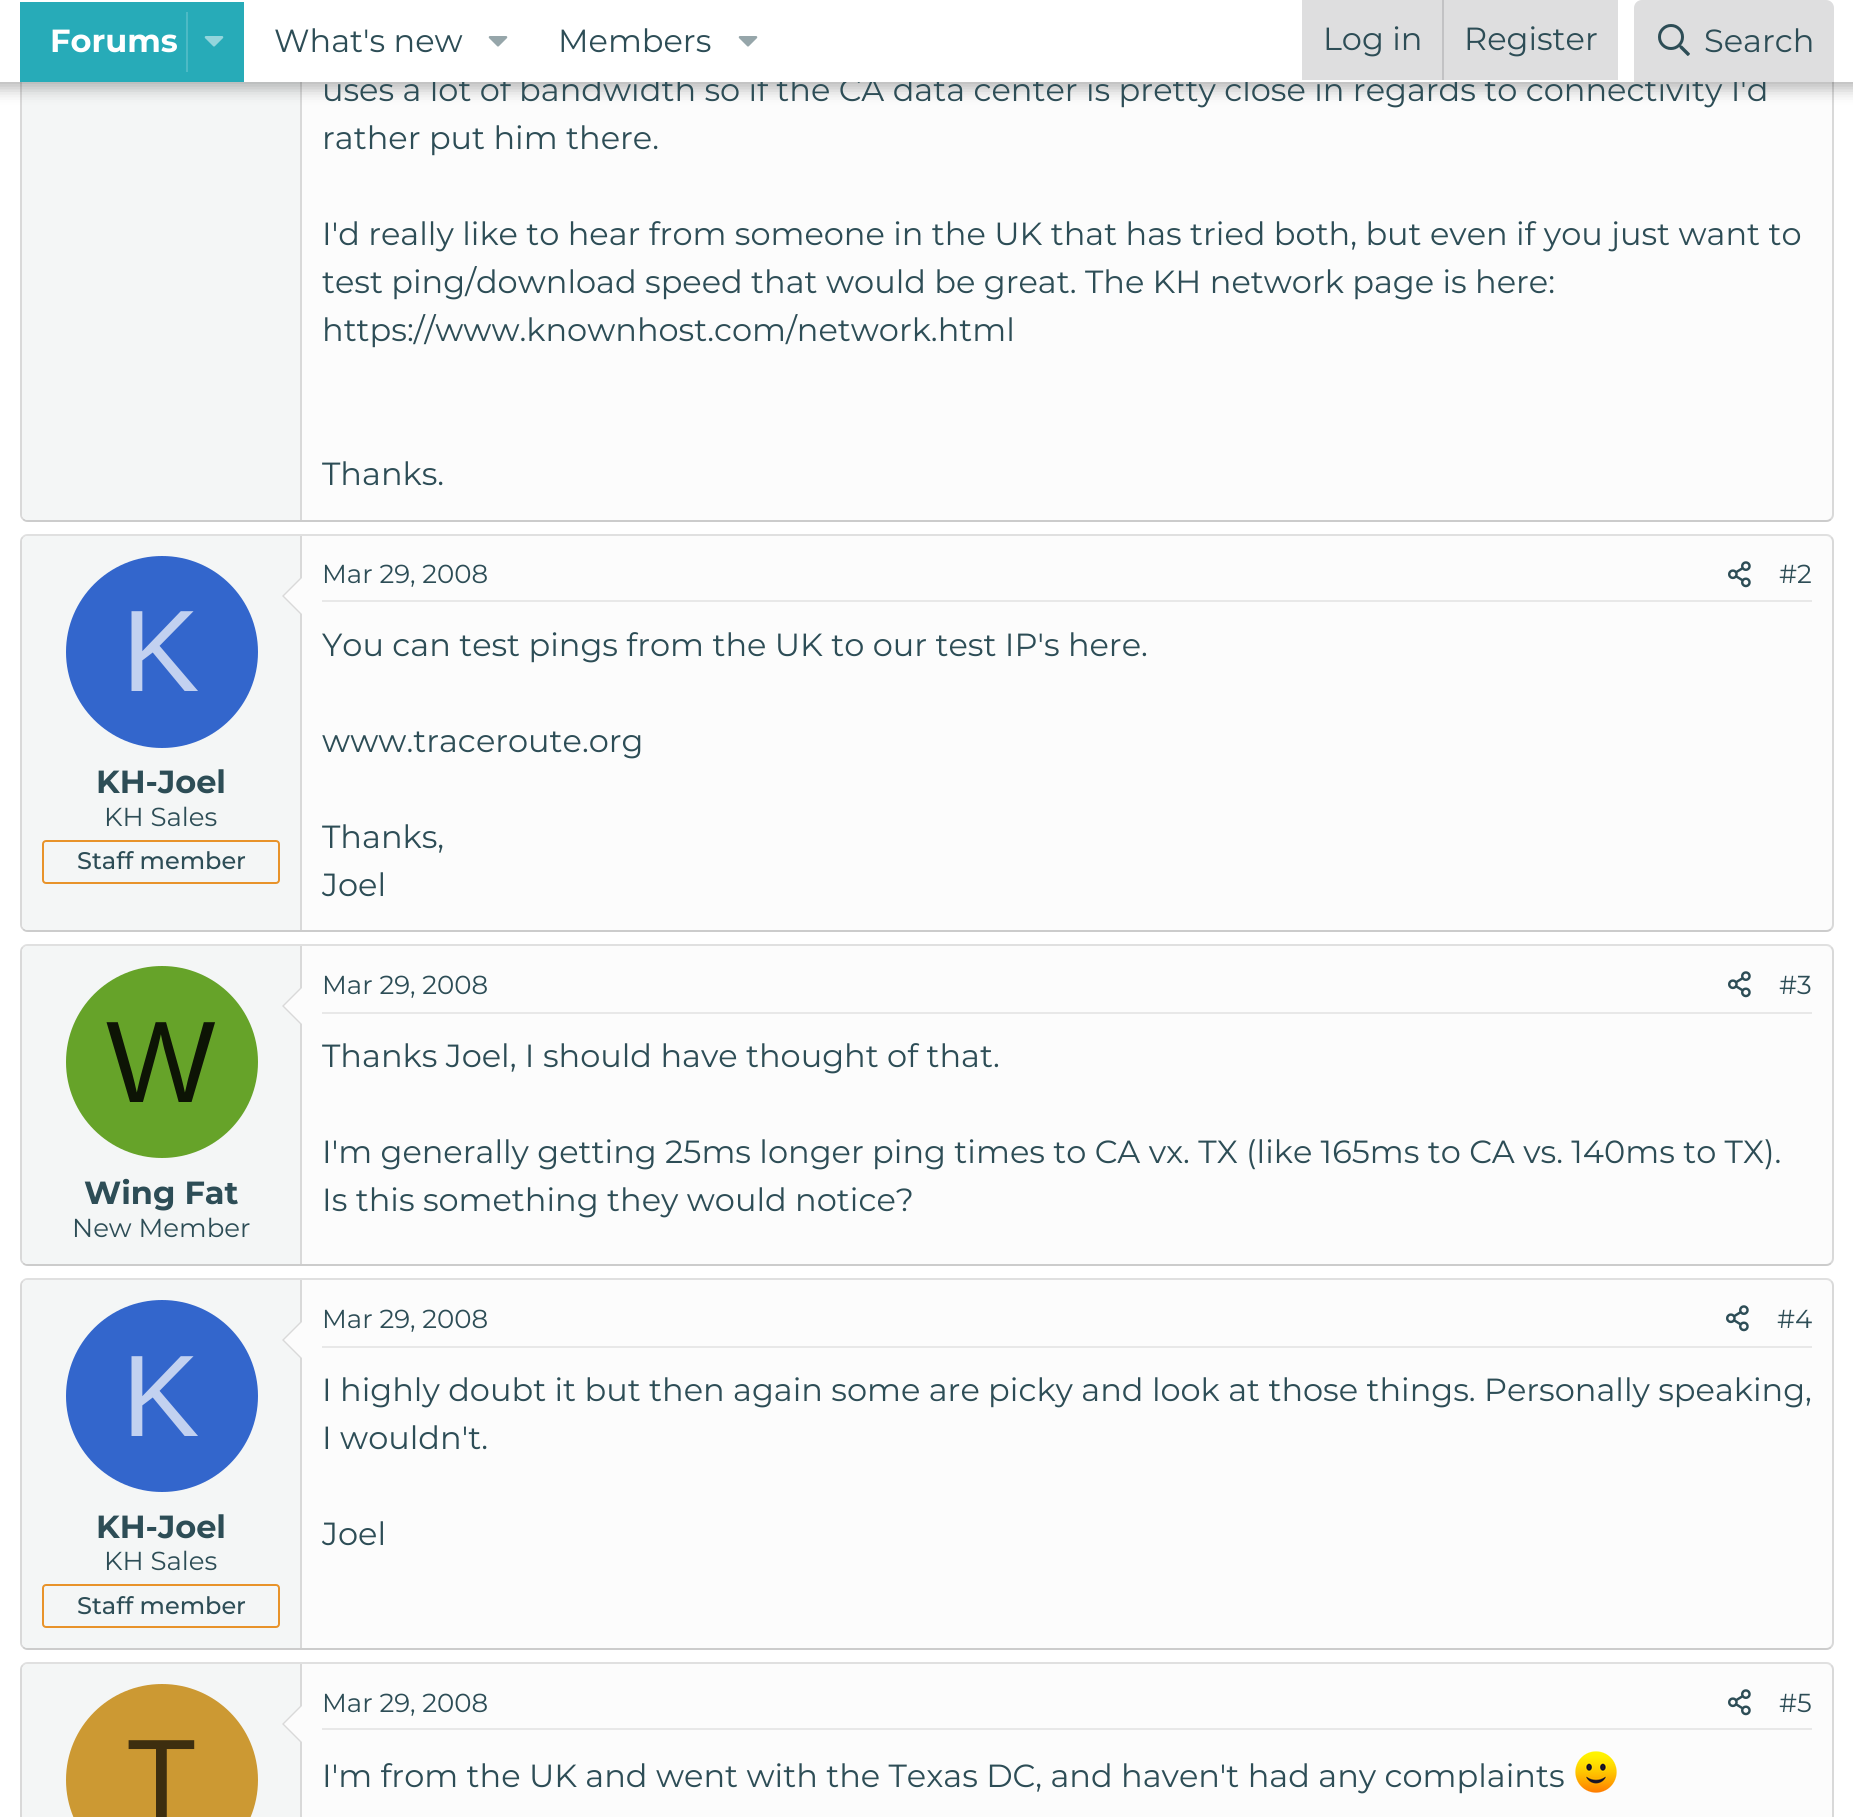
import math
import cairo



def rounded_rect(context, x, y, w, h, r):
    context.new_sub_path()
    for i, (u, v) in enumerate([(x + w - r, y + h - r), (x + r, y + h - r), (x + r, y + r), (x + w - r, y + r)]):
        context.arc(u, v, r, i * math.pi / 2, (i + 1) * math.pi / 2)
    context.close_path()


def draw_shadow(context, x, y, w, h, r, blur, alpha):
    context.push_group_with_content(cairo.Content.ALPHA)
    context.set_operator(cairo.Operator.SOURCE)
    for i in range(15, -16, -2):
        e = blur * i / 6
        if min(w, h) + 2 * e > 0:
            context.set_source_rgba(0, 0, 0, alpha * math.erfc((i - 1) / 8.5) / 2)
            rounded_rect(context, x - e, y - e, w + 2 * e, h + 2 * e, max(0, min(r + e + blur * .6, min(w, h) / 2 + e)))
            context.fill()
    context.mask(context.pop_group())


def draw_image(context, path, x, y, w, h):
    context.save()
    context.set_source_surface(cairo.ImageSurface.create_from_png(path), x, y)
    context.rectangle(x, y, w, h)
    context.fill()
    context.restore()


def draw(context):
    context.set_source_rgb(1, 1, 1)
    context.paint()
    context.set_source_rgb(252 / 255, 252 / 255, 252 / 255)
    rounded_rect(context, 20, -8, 1814, 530, 8)
    context.fill()
    context.new_path()
    context.move_to(1831, -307)
    context.curve_to(1832.5, -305.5, 1833, -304, 1833, -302)
    context.line_to(1833, 514)
    context.curve_to(1833, 516, 1832.5, 517.5, 1831, 519)
    context.set_source_rgb(217 / 255, 217 / 255, 217 / 255)
    context.stroke()
    context.new_path()
    context.move_to(1831, 519)
    context.curve_to(1829.5, 520.5, 1828, 521, 1826, 521)
    context.line_to(28, 521)
    context.curve_to(26, 521, 24.5, 520.5, 23, 519)
    context.set_source_rgb(204 / 255, 204 / 255, 204 / 255)
    context.stroke()
    context.new_path()
    context.move_to(23, 519)
    context.curve_to(21.5, 517.5, 21, 516, 21, 514)
    context.line_to(21, -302)
    context.curve_to(21, -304, 21.5, -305.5, 23, -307)
    context.set_source_rgb(217 / 255, 217 / 255, 217 / 255)
    context.stroke()
    context.set_source_rgb(244 / 255, 246 / 255, 246 / 255)
    context.new_path()
    context.move_to(28, -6)
    context.line_to(302, -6)
    context.line_to(302, 520)
    context.line_to(28, 520)
    context.curve_to(24.5, 520, 22, 517.5, 22, 514)
    context.line_to(22, 0)
    context.curve_to(22, -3.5, 24.5, -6, 28, -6)
    context.close_path()
    context.fill()
    context.set_source_rgb(217 / 255, 217 / 255, 217 / 255)
    context.rectangle(300, 82, 2, 438)
    context.fill()
    context.set_source_rgb(0, 0, 0)
    draw_shadow(context, -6, -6, 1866, 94, 0, 8, 0.3)
    context.set_source_rgb(252 / 255, 252 / 255, 252 / 255)
    rounded_rect(context, 20, 534, 1814, 398, 8)
    context.fill()
    context.new_path()
    context.move_to(23, 537)
    context.curve_to(24.5, 535.5, 26, 535, 28, 535)
    context.line_to(1826, 535)
    context.curve_to(1828, 535, 1829.5, 535.5, 1831, 537)
    context.set_source_rgb(224 / 255, 224 / 255, 224 / 255)
    context.stroke()
    context.new_path()
    context.move_to(1831, 537)
    context.curve_to(1832.5, 538.5, 1833, 540, 1833, 542)
    context.line_to(1833, 924)
    context.curve_to(1833, 926, 1832.5, 927.5, 1831, 929)
    context.set_source_rgb(217 / 255, 217 / 255, 217 / 255)
    context.stroke()
    context.new_path()
    context.move_to(1831, 929)
    context.curve_to(1829.5, 930.5, 1828, 931, 1826, 931)
    context.line_to(28, 931)
    context.curve_to(26, 931, 24.5, 930.5, 23, 929)
    context.set_source_rgb(204 / 255, 204 / 255, 204 / 255)
    context.stroke()
    context.new_path()
    context.move_to(23, 929)
    context.curve_to(21.5, 927.5, 21, 926, 21, 924)
    context.line_to(21, 542)
    context.curve_to(21, 540, 21.5, 538.5, 23, 537)
    context.set_source_rgb(217 / 255, 217 / 255, 217 / 255)
    context.stroke()
    context.set_source_rgb(244 / 255, 246 / 255, 246 / 255)
    context.new_path()
    context.move_to(28, 536)
    context.line_to(302, 536)
    context.line_to(302, 930)
    context.line_to(28, 930)
    context.curve_to(24.5, 930, 22, 927.5, 22, 924)
    context.line_to(22, 542)
    context.curve_to(22, 538.5, 24.5, 536, 28, 536)
    context.close_path()
    context.fill()
    context.set_source_rgb(217 / 255, 217 / 255, 217 / 255)
    context.rectangle(300, 536, 2, 394)
    context.fill()
    context.new_path()
    context.move_to(302, 576)
    context.line_to(302, 616)
    context.line_to(282, 596)
    context.close_path()
    context.fill()
    context.set_source_rgb(252 / 255, 252 / 255, 252 / 255)
    context.new_path()
    context.move_to(302, 578)
    context.line_to(302, 614)
    context.line_to(284, 596)
    context.close_path()
    context.fill()
    context.set_source_rgb(51 / 255, 102 / 255, 204 / 255)
    context.arc(162, 652, 96, 0, 2 * math.pi)
    context.fill()
    rounded_rect(context, 43, 841, 236, 42, 3)
    context.set_source_rgb(232 / 255, 147 / 255, 42 / 255)
    context.stroke()
    context.set_source_rgb(232 / 255, 232 / 255, 232 / 255)
    context.rectangle(322, 600, 1490, 2)
    context.fill()
    draw_image(context, "images/4.png", 1728, 561, 23, 27)
    context.set_source_rgb(252 / 255, 252 / 255, 252 / 255)
    rounded_rect(context, 20, 944, 1814, 322, 8)
    context.fill()
    context.new_path()
    context.move_to(23, 947)
    context.curve_to(24.5, 945.5, 26, 945, 28, 945)
    context.line_to(1826, 945)
    context.curve_to(1828, 945, 1829.5, 945.5, 1831, 947)
    context.set_source_rgb(224 / 255, 224 / 255, 224 / 255)
    context.stroke()
    context.new_path()
    context.move_to(1831, 947)
    context.curve_to(1832.5, 948.5, 1833, 950, 1833, 952)
    context.line_to(1833, 1258)
    context.curve_to(1833, 1260, 1832.5, 1261.5, 1831, 1263)
    context.set_source_rgb(217 / 255, 217 / 255, 217 / 255)
    context.stroke()
    context.new_path()
    context.move_to(1831, 1263)
    context.curve_to(1829.5, 1264.5, 1828, 1265, 1826, 1265)
    context.line_to(28, 1265)
    context.curve_to(26, 1265, 24.5, 1264.5, 23, 1263)
    context.set_source_rgb(204 / 255, 204 / 255, 204 / 255)
    context.stroke()
    context.new_path()
    context.move_to(23, 1263)
    context.curve_to(21.5, 1261.5, 21, 1260, 21, 1258)
    context.line_to(21, 952)
    context.curve_to(21, 950, 21.5, 948.5, 23, 947)
    context.set_source_rgb(217 / 255, 217 / 255, 217 / 255)
    context.stroke()
    context.set_source_rgb(244 / 255, 246 / 255, 246 / 255)
    context.new_path()
    context.move_to(28, 946)
    context.line_to(302, 946)
    context.line_to(302, 1264)
    context.line_to(28, 1264)
    context.curve_to(24.5, 1264, 22, 1261.5, 22, 1258)
    context.line_to(22, 952)
    context.curve_to(22, 948.5, 24.5, 946, 28, 946)
    context.close_path()
    context.fill()
    context.set_source_rgb(217 / 255, 217 / 255, 217 / 255)
    context.rectangle(300, 946, 2, 318)
    context.fill()
    context.new_path()
    context.move_to(302, 986)
    context.line_to(302, 1026)
    context.line_to(282, 1006)
    context.close_path()
    context.fill()
    context.set_source_rgb(252 / 255, 252 / 255, 252 / 255)
    context.new_path()
    context.move_to(302, 988)
    context.line_to(302, 1024)
    context.line_to(284, 1006)
    context.close_path()
    context.fill()
    context.set_source_rgb(102 / 255, 163 / 255, 41 / 255)
    context.arc(162, 1062, 96, 0, 2 * math.pi)
    context.fill()
    context.set_source_rgb(232 / 255, 232 / 255, 232 / 255)
    context.rectangle(322, 1012, 1490, 2)
    context.fill()
    draw_image(context, "images/4.png", 1728, 971, 23, 27)
    context.set_source_rgb(252 / 255, 252 / 255, 252 / 255)
    rounded_rect(context, 20, 1278, 1814, 372, 8)
    context.fill()
    context.new_path()
    context.move_to(23, 1281)
    context.curve_to(24.5, 1279.5, 26, 1279, 28, 1279)
    context.line_to(1826, 1279)
    context.curve_to(1828, 1279, 1829.5, 1279.5, 1831, 1281)
    context.set_source_rgb(224 / 255, 224 / 255, 224 / 255)
    context.stroke()
    context.new_path()
    context.move_to(1831, 1281)
    context.curve_to(1832.5, 1282.5, 1833, 1284, 1833, 1286)
    context.line_to(1833, 1642)
    context.curve_to(1833, 1644, 1832.5, 1645.5, 1831, 1647)
    context.set_source_rgb(217 / 255, 217 / 255, 217 / 255)
    context.stroke()
    context.new_path()
    context.move_to(1831, 1647)
    context.curve_to(1829.5, 1648.5, 1828, 1649, 1826, 1649)
    context.line_to(28, 1649)
    context.curve_to(26, 1649, 24.5, 1648.5, 23, 1647)
    context.set_source_rgb(204 / 255, 204 / 255, 204 / 255)
    context.stroke()
    context.new_path()
    context.move_to(23, 1647)
    context.curve_to(21.5, 1645.5, 21, 1644, 21, 1642)
    context.line_to(21, 1286)
    context.curve_to(21, 1284, 21.5, 1282.5, 23, 1281)
    context.set_source_rgb(217 / 255, 217 / 255, 217 / 255)
    context.stroke()
    context.set_source_rgb(244 / 255, 246 / 255, 246 / 255)
    context.new_path()
    context.move_to(28, 1280)
    context.line_to(302, 1280)
    context.line_to(302, 1648)
    context.line_to(28, 1648)
    context.curve_to(24.5, 1648, 22, 1645.5, 22, 1642)
    context.line_to(22, 1286)
    context.curve_to(22, 1282.5, 24.5, 1280, 28, 1280)
    context.close_path()
    context.fill()
    context.set_source_rgb(217 / 255, 217 / 255, 217 / 255)
    context.rectangle(300, 1280, 2, 368)
    context.fill()
    context.new_path()
    context.move_to(302, 1320)
    context.line_to(302, 1360)
    context.line_to(282, 1340)
    context.close_path()
    context.fill()
    context.set_source_rgb(252 / 255, 252 / 255, 252 / 255)
    context.new_path()
    context.move_to(302, 1322)
    context.line_to(302, 1358)
    context.line_to(284, 1340)
    context.close_path()
    context.fill()
    context.set_source_rgb(51 / 255, 102 / 255, 204 / 255)
    context.arc(162, 1396, 96, 0, 2 * math.pi)
    context.fill()
    rounded_rect(context, 43, 1585, 236, 42, 3)
    context.set_source_rgb(232 / 255, 147 / 255, 42 / 255)
    context.stroke()
    context.set_source_rgb(232 / 255, 232 / 255, 232 / 255)
    context.rectangle(322, 1346, 1490, 2)
    context.fill()
    draw_image(context, "images/4.png", 1726, 1305, 23, 27)
    context.set_source_rgb(252 / 255, 252 / 255, 252 / 255)
    rounded_rect(context, 20, 1662, 1814, 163, 8)
    context.fill()
    context.new_path()
    context.move_to(23, 1665)
    context.curve_to(24.5, 1663.5, 26, 1663, 28, 1663)
    context.line_to(1826, 1663)
    context.curve_to(1828, 1663, 1829.5, 1663.5, 1831, 1665)
    context.set_source_rgb(224 / 255, 224 / 255, 224 / 255)
    context.stroke()
    context.new_path()
    context.move_to(1831, 1665)
    context.curve_to(1832.5, 1666.5, 1833, 1668, 1833, 1670)
    context.line_to(1833, 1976)
    context.curve_to(1833, 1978, 1832.5, 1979.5, 1831, 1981)
    context.set_source_rgb(217 / 255, 217 / 255, 217 / 255)
    context.stroke()
    context.new_path()
    context.move_to(23, 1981)
    context.curve_to(21.5, 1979.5, 21, 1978, 21, 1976)
    context.line_to(21, 1670)
    context.curve_to(21, 1668, 21.5, 1666.5, 23, 1665)
    context.stroke()
    context.set_source_rgb(244 / 255, 246 / 255, 246 / 255)
    context.new_path()
    context.move_to(28, 1664)
    context.line_to(302, 1664)
    context.line_to(302, 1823)
    context.line_to(28, 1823)
    context.curve_to(24.5, 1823, 22, 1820.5, 22, 1817)
    context.line_to(22, 1670)
    context.curve_to(22, 1666.5, 24.5, 1664, 28, 1664)
    context.close_path()
    context.fill()
    context.set_source_rgb(217 / 255, 217 / 255, 217 / 255)
    context.rectangle(300, 1664, 2, 153)
    context.fill()
    context.new_path()
    context.move_to(302, 1704)
    context.line_to(302, 1744)
    context.line_to(282, 1724)
    context.close_path()
    context.fill()
    context.set_source_rgb(252 / 255, 252 / 255, 252 / 255)
    context.new_path()
    context.move_to(302, 1706)
    context.line_to(302, 1742)
    context.line_to(284, 1724)
    context.close_path()
    context.fill()
    context.set_source_rgb(204 / 255, 153 / 255, 51 / 255)
    context.arc(162, 1780, 96, 0, 2 * math.pi)
    context.fill()
    context.set_source_rgb(232 / 255, 232 / 255, 232 / 255)
    context.rectangle(322, 1728, 1490, 2)
    context.fill()
    draw_image(context, "images/4.png", 1728, 1689, 23, 27)
    draw_image(context, "images/5.png", 1575, 1751, 42, 42)
    context.select_font_face("Montserrat")
    context.set_font_size(32)
    context.set_source_rgb(45 / 255, 77 / 255, 86 / 255)
    context.move_to(322, 101)
    context.show_text("uses a lot of bandwidth so if the CA data center is pretty close in regards to connectivity I'd")
    context.set_source_rgb(1, 1, 1)
    context.rectangle(0, 0, 1853, 82)
    context.fill()
    draw_image(context, "images/2.png", 738, 36, 20, 11)
    draw_image(context, "images/2.png", 488, 36, 20, 11)
    context.set_source_rgb(39 / 255, 171 / 255, 184 / 255)
    context.rectangle(20, 2, 224, 80)
    context.fill()
    context.set_source_rgb(77 / 255, 186 / 255, 197 / 255)
    context.rectangle(186, 12, 2, 60)
    context.fill()
    draw_image(context, "images/1.png", 204, 36, 20, 11)
    context.set_source_rgb(45 / 255, 77 / 255, 86 / 255)
    context.move_to(558, 52)
    context.show_text("Members")
    context.move_to(274, 52)
    context.show_text("What's new")
    context.select_font_face("Montserrat", cairo.FontSlant.NORMAL, cairo.FontWeight.BOLD)
    context.set_source_rgb(1, 1, 1)
    context.move_to(50, 52)
    context.show_text("Forums")
    context.set_source_rgb(222 / 255, 222 / 255, 223 / 255)
    context.new_path()
    context.move_to(1642, 0)
    context.line_to(1826, 0)
    context.curve_to(1830.5, 0, 1834, 3.5, 1834, 8)
    context.line_to(1834, 82)
    context.line_to(1634, 82)
    context.line_to(1634, 8)
    context.curve_to(1634, 3.5, 1637.5, 0, 1642, 0)
    context.close_path()
    context.fill()
    context.select_font_face("Montserrat")
    context.set_source_rgb(45 / 255, 77 / 255, 86 / 255)
    context.move_to(1704, 52)
    context.show_text("Search")
    draw_image(context, "images/3.png", 1658, 24, 32, 32)
    context.set_source_rgb(222 / 255, 222 / 255, 223 / 255)
    context.rectangle(1302, 0, 316, 80)
    context.fill()
    context.set_source_rgb(45 / 255, 77 / 255, 86 / 255)
    context.move_to(1464, 50)
    context.show_text("Register")
    context.set_source_rgb(194 / 255, 194 / 255, 196 / 255)
    context.rectangle(1442, 0, 2, 80)
    context.fill()
    context.set_source_rgb(45 / 255, 77 / 255, 86 / 255)
    context.move_to(1323, 50)
    context.show_text("Log in")
    context.move_to(322, 149)
    context.show_text("rather put him there.")
    context.move_to(322, 245)
    context.show_text("I'd really like to hear from someone in the UK that has tried both, but even if you just want to")
    context.move_to(322, 293)
    context.show_text("test ping/download speed that would be great. The KH network page is here:")
    context.move_to(322, 341)
    context.show_text("https://www.knownhost.com/network.html")
    context.move_to(322, 485)
    context.show_text("Thanks.")
    context.select_font_face("Liberation Sans")
    context.set_font_size(116)
    context.set_source_rgb(194 / 255, 209 / 255, 240 / 255)
    context.move_to(122, 691)
    context.show_text("K")
    context.select_font_face("Montserrat", cairo.FontSlant.NORMAL, cairo.FontWeight.BOLD)
    context.set_font_size(32)
    context.set_source_rgb(45 / 255, 77 / 255, 86 / 255)
    context.move_to(96, 793)
    context.show_text("KH-Joel")
    context.select_font_face("Montserrat")
    context.set_font_size(26)
    context.move_to(104, 826)
    context.show_text("KH Sales")
    context.select_font_face("Montserrat Medium")
    context.set_font_size(24)
    context.move_to(77, 869)
    context.show_text("Staff member")
    context.select_font_face("Montserrat")
    context.set_font_size(26)
    context.move_to(322, 583)
    context.show_text("Mar 29, 2008")
    context.move_to(1779, 583)
    context.show_text("#2")
    context.set_font_size(32)
    context.move_to(322, 656)
    context.show_text("You can test pings from the UK to our test IP's here.")
    context.move_to(322, 752)
    context.show_text("www.traceroute.org")
    context.move_to(322, 848)
    context.show_text("Thanks,")
    context.move_to(322, 896)
    context.show_text("Joel")
    context.select_font_face("Liberation Sans")
    context.set_font_size(116)
    context.set_source_rgb(13 / 255, 20 / 255, 5 / 255)
    context.move_to(106, 1102)
    context.show_text("W")
    context.select_font_face("Montserrat", cairo.FontSlant.NORMAL, cairo.FontWeight.BOLD)
    context.set_font_size(32)
    context.set_source_rgb(45 / 255, 77 / 255, 86 / 255)
    context.move_to(84, 1204)
    context.show_text("Wing Fat")
    context.select_font_face("Montserrat")
    context.set_font_size(26)
    context.move_to(72, 1237)
    context.show_text("New Member")
    context.move_to(322, 994)
    context.show_text("Mar 29, 2008")
    context.move_to(1779, 994)
    context.show_text("#3")
    context.set_font_size(32)
    context.move_to(322, 1067)
    context.show_text("Thanks Joel, I should have thought of that.")
    context.move_to(322, 1163)
    context.show_text("I'm generally getting 25ms longer ping times to CA vx. TX (like 165ms to CA vs. 140ms to TX).")
    context.move_to(322, 1211)
    context.show_text("Is this something they would notice?")
    context.select_font_face("Liberation Sans")
    context.set_font_size(116)
    context.set_source_rgb(194 / 255, 209 / 255, 240 / 255)
    context.move_to(122, 1436)
    context.show_text("K")
    context.select_font_face("Montserrat", cairo.FontSlant.NORMAL, cairo.FontWeight.BOLD)
    context.set_font_size(32)
    context.set_source_rgb(45 / 255, 77 / 255, 86 / 255)
    context.move_to(96, 1538)
    context.show_text("KH-Joel")
    context.select_font_face("Montserrat")
    context.set_font_size(26)
    context.move_to(104, 1570)
    context.show_text("KH Sales")
    context.select_font_face("Montserrat Medium")
    context.set_font_size(24)
    context.move_to(77, 1614)
    context.show_text("Staff member")
    context.select_font_face("Montserrat")
    context.set_font_size(26)
    context.move_to(322, 1328)
    context.show_text("Mar 29, 2008")
    context.move_to(1777, 1328)
    context.show_text("#4")
    context.set_font_size(32)
    context.move_to(322, 1401)
    context.show_text("I highly doubt it but then again some are picky and look at those things. Personally speaking,")
    context.move_to(322, 1449)
    context.show_text("I wouldn't.")
    context.move_to(322, 1545)
    context.show_text("Joel")
    context.select_font_face("Liberation Sans")
    context.set_font_size(116)
    context.set_source_rgb(61 / 255, 46 / 255, 15 / 255)
    context.move_to(126, 1820)
    context.show_text("T")
    context.select_font_face("Montserrat")
    context.set_font_size(26)
    context.set_source_rgb(45 / 255, 77 / 255, 86 / 255)
    context.move_to(322, 1712)
    context.show_text("Mar 29, 2008")
    context.move_to(1779, 1712)
    context.show_text("#5")
    context.set_font_size(32)
    context.move_to(322, 1787)
    context.show_text("I'm from the UK and went with the Texas DC, and haven't had any complaints")


surface = cairo.ImageSurface(cairo.Format.RGB24, 1853, 1817)
context = cairo.Context(surface)
options = cairo.FontOptions()
options.set_hint_metrics(cairo.HintMetrics.OFF)
options.set_hint_style(cairo.HintStyle.NONE)
context.set_font_options(options)
context.set_miter_limit(4)
draw(context)
surface.write_to_png("out.png")
